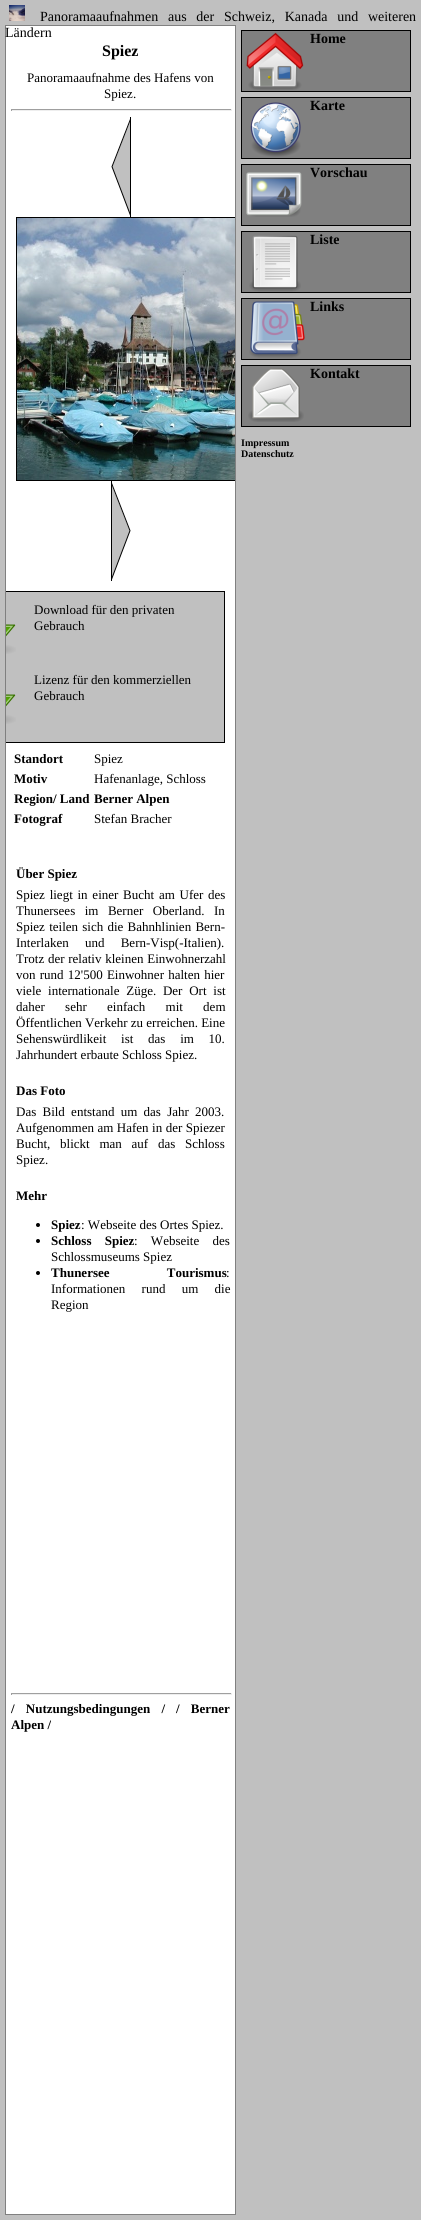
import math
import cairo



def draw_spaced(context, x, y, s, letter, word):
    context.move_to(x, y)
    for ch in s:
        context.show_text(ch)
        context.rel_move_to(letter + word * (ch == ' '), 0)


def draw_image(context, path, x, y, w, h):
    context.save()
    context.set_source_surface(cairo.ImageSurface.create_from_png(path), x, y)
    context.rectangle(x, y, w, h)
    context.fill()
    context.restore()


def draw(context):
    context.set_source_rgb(192 / 255, 192 / 255, 192 / 255)
    context.paint()
    draw_image(context, "images/1.png", 9, 5, 16, 16)
    context.set_source_rgb(1, 1, 1)
    context.rectangle(5.5, 25.5, 230, 2189)
    context.fill_preserve()
    context.set_source_rgb(128 / 255, 128 / 255, 128 / 255)
    context.set_line_width(1)
    context.stroke()
    context.set_source_rgb(159 / 255, 159 / 255, 159 / 255)
    context.rectangle(11, 109, 221, 1)
    context.fill()
    context.set_source_rgb(238 / 255, 238 / 255, 238 / 255)
    context.rectangle(231, 109, 1, 2)
    context.fill()
    context.rectangle(11, 110, 221, 1)
    context.fill()
    context.set_source_rgb(159 / 255, 159 / 255, 159 / 255)
    context.rectangle(11, 109, 1, 2)
    context.fill()
    draw_image(context, "images/2.png", 111, 117, 20, 100)
    context.save()
    context.rectangle(6, 26, 229, 2188)
    context.clip()
    context.rectangle(16.5, 217.5, 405, 263)
    context.set_source_rgb(0, 0, 0)
    context.stroke()
    context.restore()
    draw_image(context, "images/3.png", 17, 218, 218, 262)
    draw_image(context, "images/4.png", 111, 481, 20, 100)
    context.set_source_rgb(192 / 255, 192 / 255, 192 / 255)
    context.rectangle(6, 592, 218, 150)
    context.fill()
    context.save()
    context.rectangle(6, 26, 229, 2188)
    context.clip()
    context.rectangle(-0.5, 591.5, 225, 151)
    context.set_source_rgb(0, 0, 0)
    context.stroke()
    context.restore()
    draw_image(context, "images/5.png", 6, 624, 10, 30)
    draw_image(context, "images/5.png", 6, 694, 10, 30)
    context.set_source_rgb(0, 0, 0)
    context.arc(38, 1225, 2, 0, 2 * math.pi)
    context.fill()
    context.arc(38, 1241, 2, 0, 2 * math.pi)
    context.fill()
    context.arc(38, 1273, 2, 0, 2 * math.pi)
    context.fill()
    context.set_source_rgb(159 / 255, 159 / 255, 159 / 255)
    context.rectangle(11, 1693, 221, 1)
    context.fill()
    context.set_source_rgb(238 / 255, 238 / 255, 238 / 255)
    context.rectangle(231, 1693, 1, 2)
    context.fill()
    context.rectangle(11, 1694, 221, 1)
    context.fill()
    context.set_source_rgb(159 / 255, 159 / 255, 159 / 255)
    context.rectangle(11, 1693, 1, 2)
    context.fill()
    context.set_source_rgb(128 / 255, 128 / 255, 128 / 255)
    context.rectangle(241.5, 30.5, 169, 61)
    context.fill_preserve()
    context.set_source_rgb(0, 0, 0)
    context.stroke()
    draw_image(context, "images/6.png", 246, 32, 58, 58)
    context.set_source_rgb(128 / 255, 128 / 255, 128 / 255)
    context.rectangle(241.5, 97.5, 169, 61)
    context.fill_preserve()
    context.set_source_rgb(0, 0, 0)
    context.stroke()
    draw_image(context, "images/7.png", 250, 102, 51, 55)
    context.set_source_rgb(128 / 255, 128 / 255, 128 / 255)
    context.rectangle(241.5, 164.5, 169, 61)
    context.fill_preserve()
    context.set_source_rgb(0, 0, 0)
    context.stroke()
    draw_image(context, "images/8.png", 246, 172, 56, 45)
    context.set_source_rgb(128 / 255, 128 / 255, 128 / 255)
    context.rectangle(241.5, 231.5, 169, 61)
    context.fill_preserve()
    context.set_source_rgb(0, 0, 0)
    context.stroke()
    draw_image(context, "images/9.png", 249, 235, 52, 57)
    context.set_source_rgb(128 / 255, 128 / 255, 128 / 255)
    context.rectangle(241.5, 298.5, 169, 61)
    context.fill_preserve()
    context.set_source_rgb(0, 0, 0)
    context.stroke()
    draw_image(context, "images/10.png", 249, 301, 56, 57)
    context.set_source_rgb(128 / 255, 128 / 255, 128 / 255)
    context.rectangle(241.5, 365.5, 169, 61)
    context.fill_preserve()
    context.set_source_rgb(0, 0, 0)
    context.stroke()
    draw_image(context, "images/11.png", 248, 368, 56, 54)
    context.select_font_face("Liberation Serif")
    context.set_font_size(14)
    draw_spaced(context, 40, 21, "Panoramaaufnahmen aus der Schweiz, Kanada und weiteren", 0, 6.25)
    context.move_to(5, 37)
    context.show_text("Ländern")
    context.select_font_face("Liberation Serif", cairo.FontSlant.NORMAL, cairo.FontWeight.BOLD)
    context.set_font_size(16)
    context.move_to(102, 56)
    context.show_text("Spiez")
    context.select_font_face("Liberation Serif")
    context.set_font_size(13)
    context.move_to(27, 82)
    context.show_text("Panoramaaufnahme des Hafens von")
    context.move_to(104, 98)
    context.show_text("Spiez.")
    context.move_to(34, 614)
    context.show_text("Download für den privaten")
    context.move_to(34, 630)
    context.show_text("Gebrauch")
    context.move_to(34, 684)
    context.show_text("Lizenz für den kommerziellen")
    context.move_to(34, 700)
    context.show_text("Gebrauch")
    context.select_font_face("Liberation Serif", cairo.FontSlant.NORMAL, cairo.FontWeight.BOLD)
    context.move_to(14, 763)
    context.show_text("Standort")
    context.select_font_face("Liberation Serif")
    context.move_to(94, 763)
    context.show_text("Spiez")
    context.select_font_face("Liberation Serif", cairo.FontSlant.NORMAL, cairo.FontWeight.BOLD)
    context.move_to(14, 783)
    context.show_text("Motiv")
    context.select_font_face("Liberation Serif")
    context.move_to(94, 783)
    context.show_text("Hafenanlage, Schloss")
    context.select_font_face("Liberation Serif", cairo.FontSlant.NORMAL, cairo.FontWeight.BOLD)
    context.move_to(14, 803)
    context.show_text("Region/ Land")
    context.move_to(94, 803)
    context.show_text("Berner Alpen")
    context.move_to(14, 823)
    context.show_text("Fotograf")
    context.select_font_face("Liberation Serif")
    context.move_to(94, 823)
    context.show_text("Stefan Bracher")
    context.select_font_face("Liberation Serif", cairo.FontSlant.NORMAL, cairo.FontWeight.BOLD)
    context.move_to(16, 878)
    context.show_text("Über Spiez")
    context.select_font_face("Liberation Serif")
    draw_spaced(context, 16, 899, "Spiez liegt in einer Bucht am Ufer des", 0, 1.5)
    draw_spaced(context, 16, 915, "Thunersees im Berner Oberland. In", 0, 6.25)
    draw_spaced(context, 16, 931, "Spiez teilen sich die Bahnhlinien Bern-", 0, 1)
    draw_spaced(context, 16, 947, "Interlaken und Bern-Visp(-Italien).", 0, 13)
    draw_spaced(context, 16, 963, "Trotz der relativ kleinen Einwohnerzahl", 0, 0.5)
    draw_spaced(context, 16, 979, "von rund 12'500 Einwohner halten hier", 0, 1)
    draw_spaced(context, 16, 995, "viele internationale Züge. Der Ort ist", 0, 3.5)
    draw_spaced(context, 16, 1011, "daher sehr einfach mit dem", 0, 17)
    context.move_to(16, 1027)
    context.show_text("Öffentlichen Verkehr zu erreichen. Eine")
    draw_spaced(context, 16, 1043, "Sehenswürdlikeit ist das im 10.", 0, 11.5)
    context.move_to(16, 1059)
    context.show_text("Jahrhundert erbaute Schloss Spiez.")
    context.select_font_face("Liberation Serif", cairo.FontSlant.NORMAL, cairo.FontWeight.BOLD)
    context.move_to(16, 1095)
    context.show_text("Das Foto")
    context.select_font_face("Liberation Serif")
    draw_spaced(context, 16, 1116, "Das Bild entstand um das Jahr 2003.", 0, 3)
    draw_spaced(context, 16, 1132, "Aufgenommen am Hafen in der Spiezer", 0, 0.25)
    draw_spaced(context, 16, 1148, "Bucht, blickt man auf das Schloss", 0, 6.5)
    context.move_to(16, 1164)
    context.show_text("Spiez.")
    context.select_font_face("Liberation Serif", cairo.FontSlant.NORMAL, cairo.FontWeight.BOLD)
    context.move_to(16, 1200)
    context.show_text("Mehr")
    context.move_to(51, 1229)
    context.show_text("Spiez")
    context.select_font_face("Liberation Serif")
    context.move_to(81, 1229)
    context.show_text(": Webseite des Ortes Spiez.")
    context.select_font_face("Liberation Serif", cairo.FontSlant.NORMAL, cairo.FontWeight.BOLD)
    draw_spaced(context, 51, 1245, "Schloss Spiez", 0, 10)
    context.select_font_face("Liberation Serif")
    draw_spaced(context, 134, 1245, ": Webseite des", 0, 10)
    context.move_to(51, 1261)
    context.show_text("Schlossmuseums Spiez")
    context.select_font_face("Liberation Serif", cairo.FontSlant.NORMAL, cairo.FontWeight.BOLD)
    draw_spaced(context, 51, 1277, "Thunersee Tourismus", 0, 54)
    context.select_font_face("Liberation Serif")
    context.move_to(226, 1277)
    context.show_text(":")
    draw_spaced(context, 51, 1293, "Informationen rund um die", 0, 13)
    context.move_to(51, 1309)
    context.show_text("Region")
    context.select_font_face("Liberation Serif", cairo.FontSlant.NORMAL, cairo.FontWeight.BOLD)
    draw_spaced(context, 11, 1713, "/ Nutzungsbedingungen /", 0, 8)
    draw_spaced(context, 176, 1713, "/ Berner", 0, 8)
    context.move_to(11, 1729)
    context.show_text("Alpen /")
    context.set_font_size(14)
    context.move_to(310, 43)
    context.show_text("Home")
    context.move_to(310, 110)
    context.show_text("Karte")
    context.move_to(310, 177)
    context.show_text("Vorschau")
    context.move_to(310, 244)
    context.show_text("Liste")
    context.move_to(310, 311)
    context.show_text("Links")
    context.move_to(310, 378)
    context.show_text("Kontakt")
    context.set_font_size(10)
    context.move_to(241, 446)
    context.show_text("Impressum")
    context.move_to(241, 457)
    context.show_text("Datenschutz")


surface = cairo.ImageSurface(cairo.Format.RGB24, 421, 2220)
context = cairo.Context(surface)
options = cairo.FontOptions()
options.set_hint_metrics(cairo.HintMetrics.OFF)
options.set_hint_style(cairo.HintStyle.NONE)
context.set_font_options(options)
context.set_miter_limit(4)
draw(context)
surface.write_to_png("out.png")
